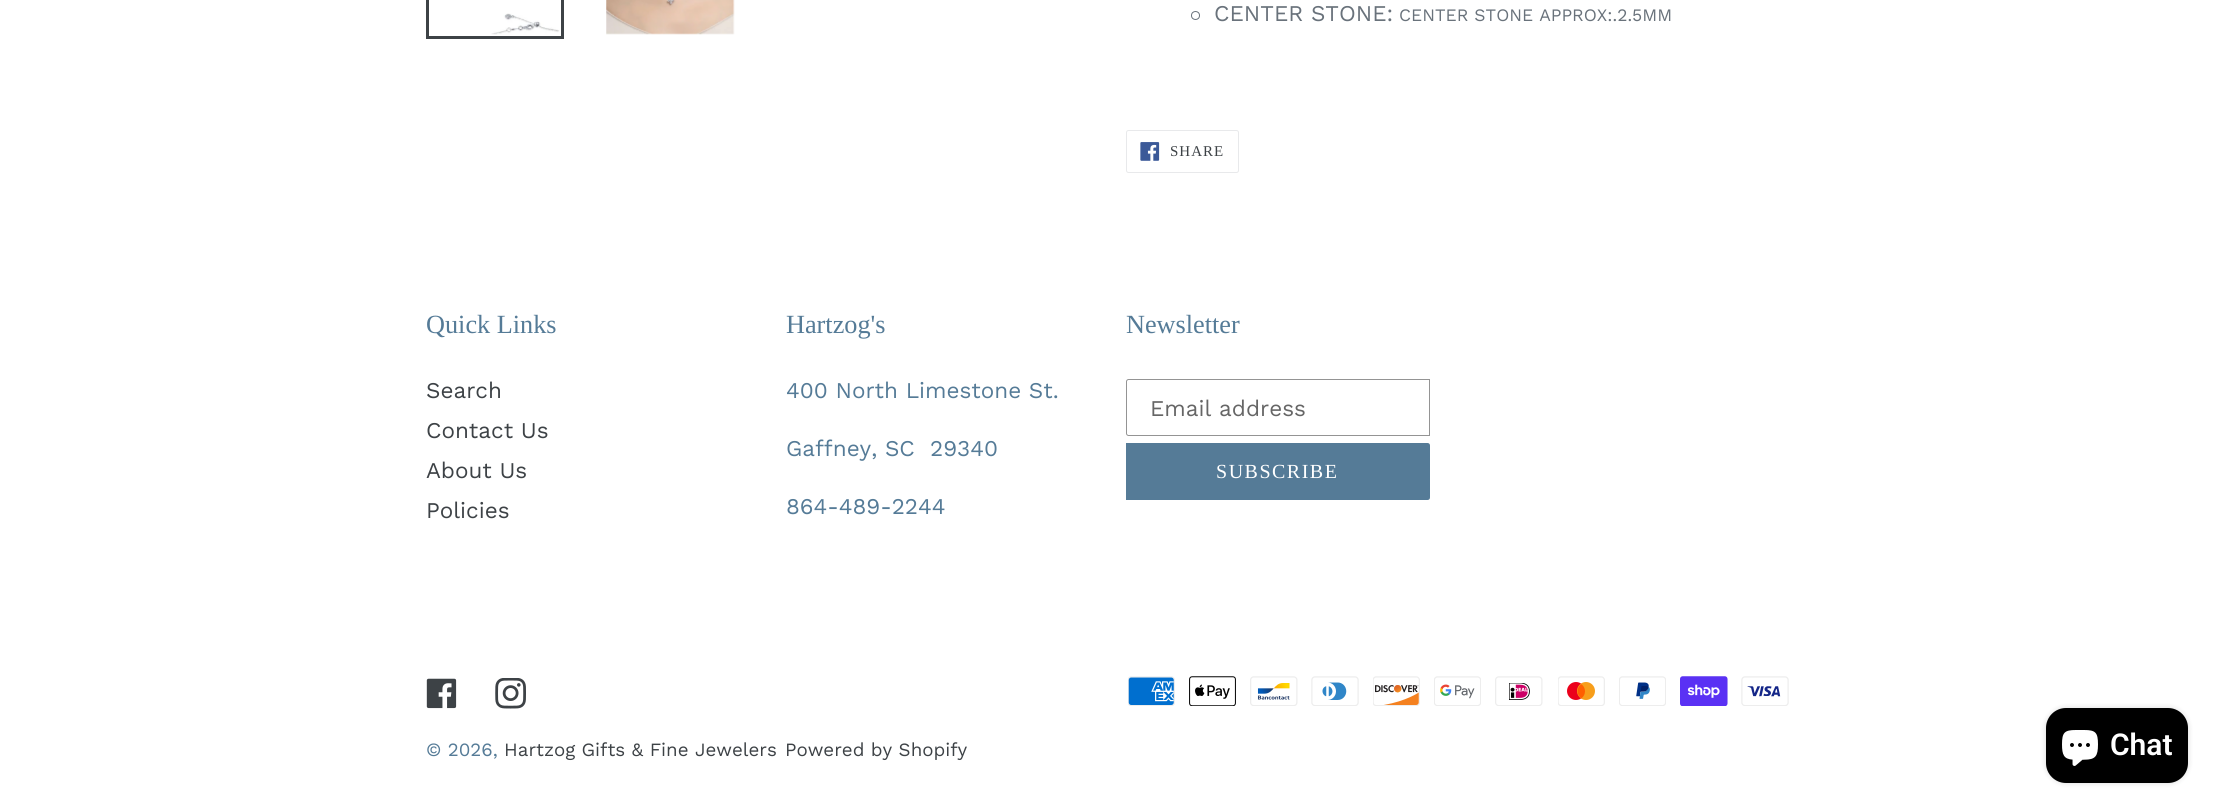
import math
import cairo



def draw_spaced(context, x, y, s, letter, word):
    context.move_to(x, y)
    for ch in s:
        context.show_text(ch)
        context.rel_move_to(letter + word * (ch == ' '), 0)


def rounded_rect(context, x, y, w, h, r):
    context.new_sub_path()
    for i, (u, v) in enumerate([(x + w - r, y + h - r), (x + r, y + h - r), (x + r, y + r), (x + w - r, y + r)]):
        context.arc(u, v, r, i * math.pi / 2, (i + 1) * math.pi / 2)
    context.close_path()


def draw_shadow(context, x, y, w, h, r, blur, alpha):
    context.push_group_with_content(cairo.Content.ALPHA)
    context.set_operator(cairo.Operator.SOURCE)
    for i in range(15, -16, -2):
        e = blur * i / 6
        if min(w, h) + 2 * e > 0:
            context.set_source_rgba(0, 0, 0, alpha * math.erfc((i - 1) / 8.5) / 2)
            rounded_rect(context, x - e, y - e, w + 2 * e, h + 2 * e, max(0, min(r + e + blur * .6, min(w, h) / 2 + e)))
            context.fill()
    context.mask(context.pop_group())


def draw_image(context, path, x, y, w, h):
    context.save()
    context.set_source_surface(cairo.ImageSurface.create_from_png(path), x, y)
    context.rectangle(x, y, w, h)
    context.fill()
    context.restore()


def draw(context):
    context.set_source_rgb(1, 1, 1)
    context.paint()
    context.rectangle(427.5, -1.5, 135, 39)
    context.set_source_rgb(61 / 255, 66 / 255, 70 / 255)
    context.set_line_width(3)
    context.stroke()
    draw_image(context, "images/1.png", 491, 13, 69, 22)
    draw_image(context, "images/2.png", 606, 0, 129, 35)
    context.arc(1195.5, 15.5, 4, 0, 2 * math.pi)
    context.set_source_rgb(105 / 255, 114 / 255, 123 / 255)
    context.set_line_width(1)
    context.stroke()
    rounded_rect(context, 1126.5, 130.5, 112, 42, 2)
    context.set_source_rgb(232 / 255, 233 / 255, 235 / 255)
    context.stroke()
    draw_image(context, "images/3.png", 1140, 142, 20, 19)
    context.new_path()
    context.move_to(1128.5, 379.5)
    context.line_to(1429.5, 379.5)
    context.line_to(1429.5, 435.5)
    context.line_to(1128.5, 435.5)
    context.curve_to(1127.5, 435.5, 1126.5, 434.5, 1126.5, 433.5)
    context.line_to(1126.5, 381.5)
    context.curve_to(1126.5, 380.5, 1127.5, 379.5, 1128.5, 379.5)
    context.close_path()
    context.set_source_rgb(148 / 255, 148 / 255, 148 / 255)
    context.stroke()
    context.set_source_rgb(85 / 255, 123 / 255, 151 / 255)
    context.new_path()
    context.move_to(1126, 443)
    context.line_to(1427.5, 443)
    context.curve_to(1429, 443, 1430, 444, 1430, 445.5)
    context.line_to(1430, 497.5)
    context.curve_to(1430, 499, 1429, 500, 1427.5, 500)
    context.line_to(1126, 500)
    context.close_path()
    context.fill()
    draw_image(context, "images/4.png", 426, 678, 31, 31)
    draw_image(context, "images/5.png", 495, 678, 31, 31)
    draw_image(context, "images/6.png", 1128, 676, 47, 30)
    draw_image(context, "images/7.png", 1189, 676, 47, 30)
    draw_image(context, "images/8.png", 1250, 676, 48, 30)
    draw_image(context, "images/9.png", 1311, 676, 48, 30)
    draw_image(context, "images/10.png", 1373, 676, 47, 30)
    draw_image(context, "images/11.png", 1434, 676, 47, 30)
    draw_image(context, "images/12.png", 1495, 676, 48, 30)
    draw_image(context, "images/13.png", 1558, 676, 47, 30)
    draw_image(context, "images/14.png", 1619, 676, 47, 30)
    draw_image(context, "images/15.png", 1680, 676, 48, 30)
    draw_image(context, "images/16.png", 1741, 676, 48, 30)
    context.set_source_rgb(0, 0, 0)
    draw_shadow(context, 2046, 708, 142, 75, 20, 3, 0.15)
    context.set_source_rgb(0, 0, 0)
    rounded_rect(context, 2046, 708, 142, 75, 20)
    context.fill()
    draw_image(context, "images/17.png", 2062, 730, 36, 36)
    context.select_font_face("Work Sans")
    context.set_font_size(22.5)
    context.set_source_rgb(105 / 255, 114 / 255, 123 / 255)
    context.move_to(1214, 21)
    context.show_text("CENTER STONE:")
    context.set_font_size(17.5)
    context.move_to(1399, 21)
    context.show_text("CENTER STONE APPROX:.2.5MM")
    context.select_font_face("Liberation Serif")
    context.set_font_size(15)
    context.set_source_rgb(61 / 255, 66 / 255, 70 / 255)
    draw_spaced(context, 1170, 156, "SHARE", 1, 0)
    context.set_font_size(26.25)
    context.set_source_rgb(85 / 255, 123 / 255, 151 / 255)
    context.move_to(426, 333)
    context.show_text("Quick Links")
    context.select_font_face("Work Sans")
    context.set_font_size(22.5)
    context.set_source_rgb(61 / 255, 66 / 255, 70 / 255)
    context.move_to(426, 398)
    context.show_text("Search")
    context.move_to(426, 438)
    context.show_text("Contact Us")
    context.move_to(426, 478)
    context.show_text("About Us")
    context.move_to(426, 518)
    context.show_text("Policies")
    context.select_font_face("Liberation Serif")
    context.set_font_size(26.25)
    context.set_source_rgb(85 / 255, 123 / 255, 151 / 255)
    context.move_to(786, 333)
    context.show_text("Hartzog's")
    context.select_font_face("Work Sans")
    context.set_font_size(22.5)
    context.move_to(786, 398)
    context.show_text("400 North Limestone St.")
    context.move_to(786, 456)
    context.show_text("Gaffney, SC  29340")
    context.move_to(786, 514)
    context.show_text("864-489-2244")
    context.select_font_face("Liberation Serif")
    context.set_font_size(26.25)
    context.move_to(1126, 333)
    context.show_text("Newsletter")
    context.select_font_face("Work Sans")
    context.set_font_size(22.5)
    context.set_source_rgb(102 / 255, 102 / 255, 102 / 255)
    context.move_to(1150, 416)
    context.show_text("Email address")
    context.select_font_face("Liberation Serif")
    context.set_font_size(20)
    context.set_source_rgb(1, 1, 1)
    draw_spaced(context, 1216, 478, "SUBSCRIBE", 1.5, 0)
    context.select_font_face("Work Sans")
    context.set_font_size(18.75)
    context.set_source_rgb(85 / 255, 123 / 255, 151 / 255)
    context.move_to(426, 756)
    context.show_text("© 2026,")
    context.set_source_rgb(61 / 255, 66 / 255, 70 / 255)
    context.move_to(504, 756)
    context.show_text("Hartzog Gifts & Fine Jewelers")
    context.move_to(785, 756)
    context.show_text("Powered by Shopify")
    context.select_font_face("Roboto SemiBold")
    context.set_font_size(30)
    context.set_source_rgb(1, 1, 1)
    context.move_to(2110, 755)
    context.show_text("Chat")


surface = cairo.ImageSurface(cairo.Format.RGB24, 2215, 808)
context = cairo.Context(surface)
options = cairo.FontOptions()
options.set_hint_metrics(cairo.HintMetrics.OFF)
options.set_hint_style(cairo.HintStyle.NONE)
context.set_font_options(options)
context.set_miter_limit(4)
draw(context)
surface.write_to_png("out.png")
